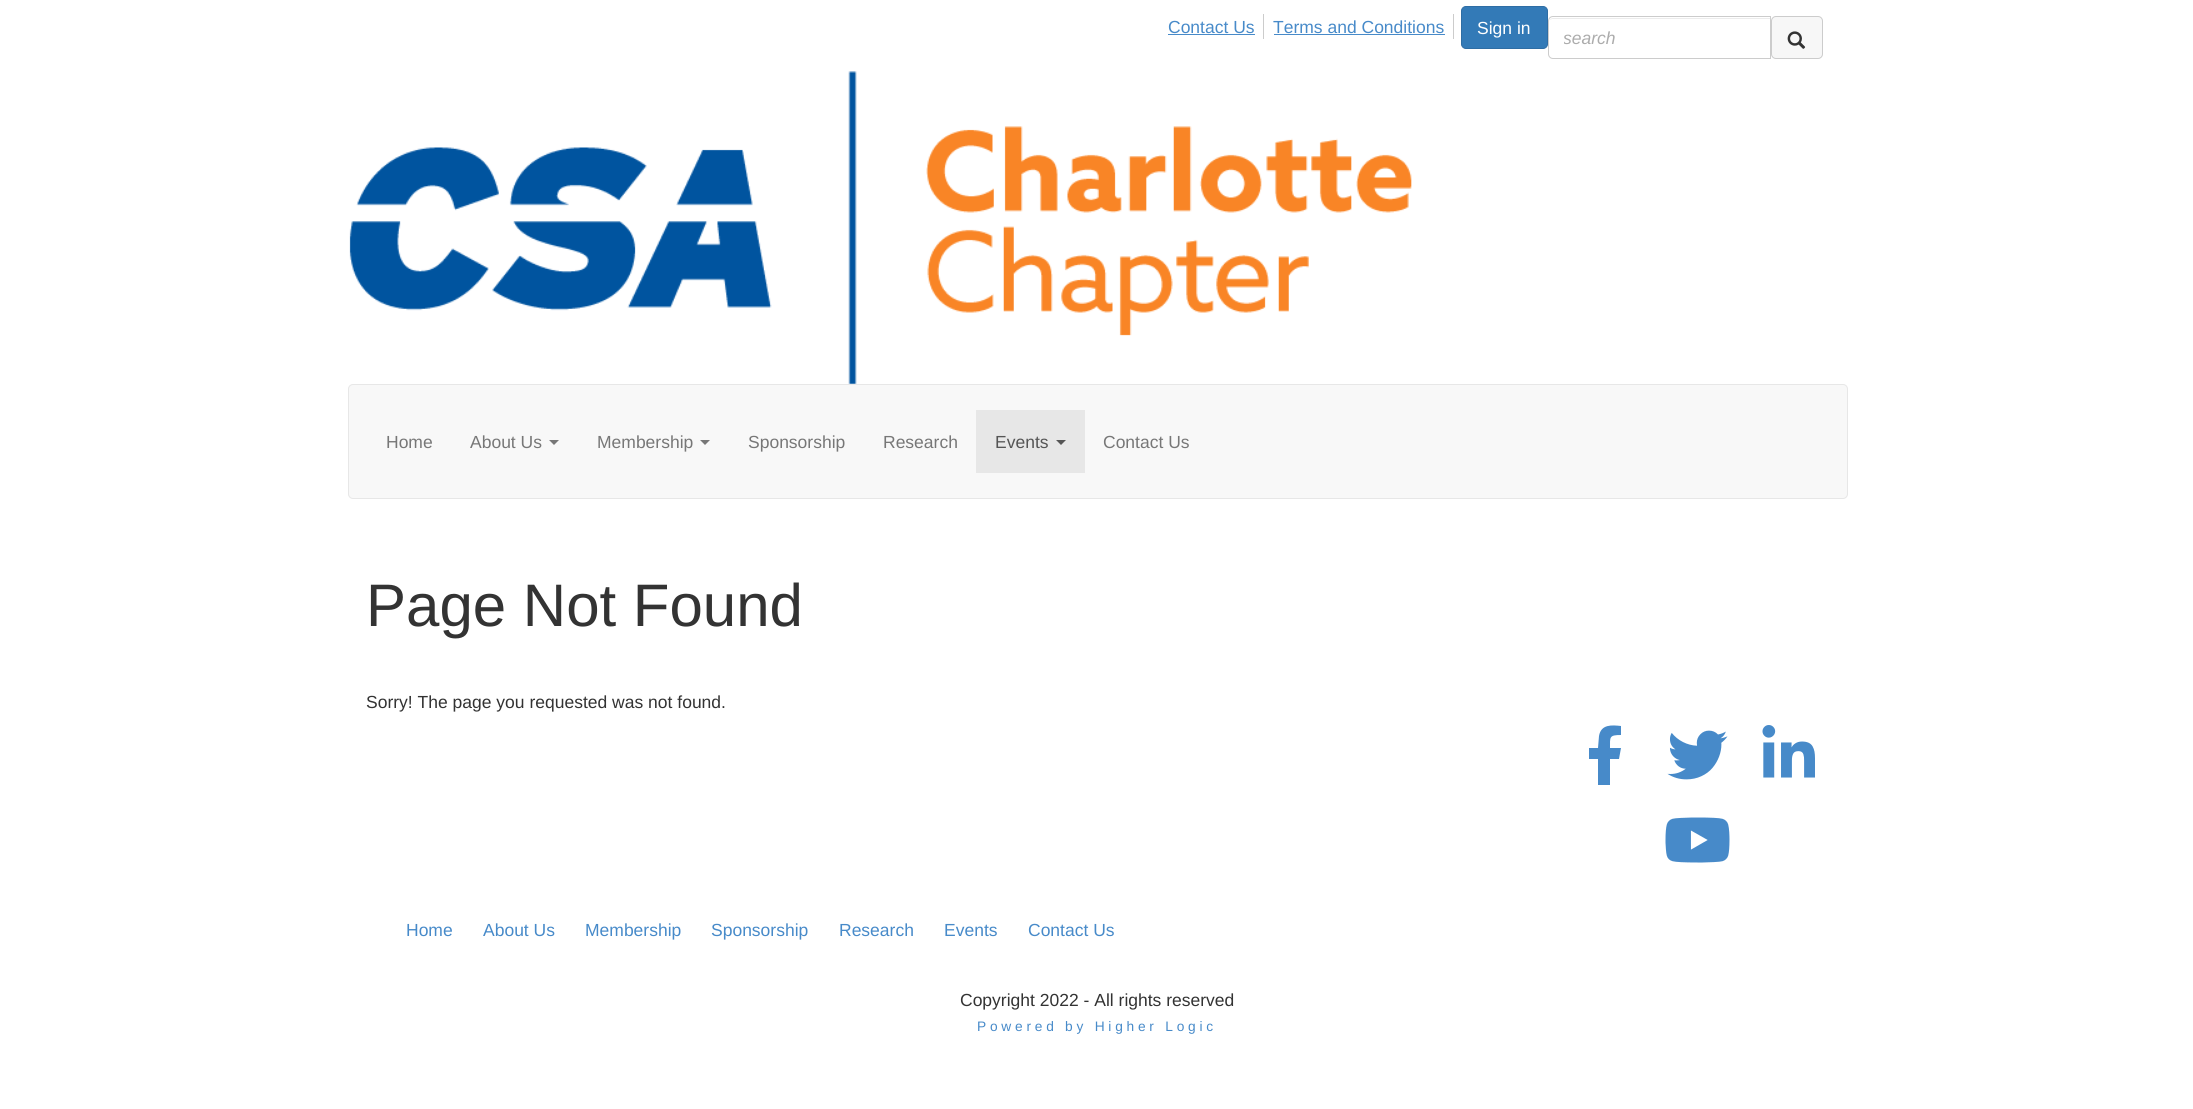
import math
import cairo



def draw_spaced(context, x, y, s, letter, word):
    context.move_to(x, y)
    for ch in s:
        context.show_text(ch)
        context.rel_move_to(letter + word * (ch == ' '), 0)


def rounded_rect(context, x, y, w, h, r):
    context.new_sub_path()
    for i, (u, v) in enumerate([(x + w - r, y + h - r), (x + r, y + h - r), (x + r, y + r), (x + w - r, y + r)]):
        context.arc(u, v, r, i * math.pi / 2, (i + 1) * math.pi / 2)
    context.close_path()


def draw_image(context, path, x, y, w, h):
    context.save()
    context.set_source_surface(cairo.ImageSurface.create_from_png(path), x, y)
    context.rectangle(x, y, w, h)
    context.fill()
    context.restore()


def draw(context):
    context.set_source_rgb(1, 1, 1)
    context.paint()
    context.set_source_rgb(204 / 255, 204 / 255, 204 / 255)
    context.rectangle(1263, 14, 1, 25)
    context.fill()
    context.set_source_rgb(71 / 255, 138 / 255, 201 / 255)
    context.rectangle(1168, 34, 87, 1)
    context.fill()
    context.set_source_rgb(204 / 255, 204 / 255, 204 / 255)
    context.rectangle(1453, 14, 1, 25)
    context.fill()
    context.set_source_rgb(71 / 255, 138 / 255, 201 / 255)
    context.rectangle(1274, 34, 171, 1)
    context.fill()
    context.set_source_rgb(51 / 255, 122 / 255, 183 / 255)
    rounded_rect(context, 1461.5, 6.5, 86, 42, 4.5)
    context.fill_preserve()
    context.set_source_rgb(46 / 255, 109 / 255, 164 / 255)
    context.set_line_width(1)
    context.stroke()
    context.set_source_rgb(236 / 255, 236 / 255, 236 / 255)
    context.new_path()
    context.move_to(1552, 19)
    context.line_to(1770, 19)
    context.line_to(1770, 18)
    context.line_to(1553, 18)
    context.curve_to(1552, 18, 1550, 19, 1550, 20)
    context.close_path()
    context.fill()
    context.new_path()
    context.move_to(1553, 16.5)
    context.line_to(1770.5, 16.5)
    context.line_to(1770.5, 58.5)
    context.line_to(1553, 58.5)
    context.curve_to(1550.5, 58.5, 1548.5, 56.5, 1548.5, 54)
    context.line_to(1548.5, 21)
    context.curve_to(1548.5, 18.5, 1550.5, 16.5, 1553, 16.5)
    context.close_path()
    context.set_source_rgb(204 / 255, 204 / 255, 204 / 255)
    context.stroke()
    context.set_source_rgb(247 / 255, 247 / 255, 247 / 255)
    rounded_rect(context, 1771.5, 16.5, 51, 42, 4.5)
    context.fill_preserve()
    context.set_source_rgb(204 / 255, 204 / 255, 204 / 255)
    context.stroke()
    draw_image(context, "images/1.png", 1787, 31, 19, 18)
    draw_image(context, "images/2.png", 349, 71, 1063, 313)
    context.set_source_rgb(248 / 255, 248 / 255, 248 / 255)
    rounded_rect(context, 348.5, 384.5, 1499, 114, 4.5)
    context.fill_preserve()
    context.set_source_rgb(231 / 255, 231 / 255, 231 / 255)
    context.stroke()
    context.set_source_rgb(119 / 255, 119 / 255, 119 / 255)
    context.new_path()
    context.move_to(549, 440)
    context.line_to(559, 440)
    context.line_to(554, 445)
    context.close_path()
    context.fill()
    context.new_path()
    context.move_to(700, 440)
    context.line_to(710, 440)
    context.line_to(705, 445)
    context.close_path()
    context.fill()
    context.set_source_rgb(231 / 255, 231 / 255, 231 / 255)
    context.rectangle(976, 410, 109, 63)
    context.fill()
    context.set_source_rgb(85 / 255, 85 / 255, 85 / 255)
    context.new_path()
    context.move_to(1056, 440)
    context.line_to(1066, 440)
    context.line_to(1061, 445)
    context.close_path()
    context.fill()
    context.set_source_rgb(71 / 255, 138 / 255, 201 / 255)
    context.new_path()
    context.move_to(1619, 759)
    context.line_to(1610, 759)
    context.line_to(1610, 785)
    context.line_to(1598, 785)
    context.line_to(1598, 759)
    context.line_to(1589, 759)
    context.line_to(1589, 748)
    context.line_to(1598, 748)
    context.line_to(1599, 736)
    context.curve_to(1601, 724, 1612, 725, 1621, 726)
    context.line_to(1621, 735)
    context.curve_to(1609, 735, 1610, 737, 1610, 748)
    context.line_to(1621, 748)
    context.close_path()
    context.fill()
    draw_image(context, "images/3.png", 1667, 730, 61, 50)
    draw_image(context, "images/4.png", 1762, 725, 53, 53)
    draw_image(context, "images/5.png", 1665, 817, 65, 46)
    context.select_font_face("Liberation Sans")
    context.set_font_size(17.5)
    context.move_to(1168, 33)
    context.show_text("Contact Us")
    context.move_to(1273, 33)
    context.show_text("Terms and Conditions")
    context.set_source_rgb(1, 1, 1)
    context.move_to(1477, 34)
    context.show_text("Sign in")
    context.save()
    context.rectangle(1564, 28, 191, 20)
    context.clip()
    context.select_font_face("Liberation Sans", cairo.FontSlant.ITALIC)
    context.set_source_rgb(172 / 255, 172 / 255, 172 / 255)
    context.move_to(1563, 44)
    context.show_text("search")
    context.restore()
    context.set_source_rgb(119 / 255, 119 / 255, 119 / 255)
    context.move_to(386, 448)
    context.show_text("Home")
    context.move_to(470, 448)
    context.show_text("About Us")
    context.move_to(597, 448)
    context.show_text("Membership")
    context.move_to(748, 448)
    context.show_text("Sponsorship")
    context.move_to(883, 448)
    context.show_text("Research")
    context.set_source_rgb(85 / 255, 85 / 255, 85 / 255)
    context.move_to(995, 448)
    context.show_text("Events")
    context.set_source_rgb(119 / 255, 119 / 255, 119 / 255)
    context.move_to(1103, 448)
    context.show_text("Contact Us")
    context.set_font_size(60)
    context.set_source_rgb(51 / 255, 51 / 255, 51 / 255)
    context.move_to(366, 626)
    context.show_text("Page Not Found")
    context.set_font_size(17.5)
    context.move_to(366, 708)
    context.show_text("Sorry! The page you requested was not found.")
    context.set_source_rgb(71 / 255, 138 / 255, 201 / 255)
    context.move_to(406, 936)
    context.show_text("Home")
    context.move_to(483, 936)
    context.show_text("About Us")
    context.move_to(585, 936)
    context.show_text("Membership")
    context.move_to(711, 936)
    context.show_text("Sponsorship")
    context.move_to(839, 936)
    context.show_text("Research")
    context.move_to(944, 936)
    context.show_text("Events")
    context.move_to(1028, 936)
    context.show_text("Contact Us")
    context.set_source_rgb(51 / 255, 51 / 255, 51 / 255)
    context.move_to(960, 1006)
    context.show_text("Copyright 2022 - All rights reserved")
    context.set_font_size(13.75)
    context.set_source_rgb(71 / 255, 138 / 255, 201 / 255)
    draw_spaced(context, 977, 1031, "Powered by Higher Logic", 3.75, 0)


surface = cairo.ImageSurface(cairo.Format.RGB24, 2193, 1109)
context = cairo.Context(surface)
options = cairo.FontOptions()
options.set_hint_metrics(cairo.HintMetrics.OFF)
options.set_hint_style(cairo.HintStyle.NONE)
context.set_font_options(options)
context.set_miter_limit(4)
draw(context)
surface.write_to_png("out.png")
